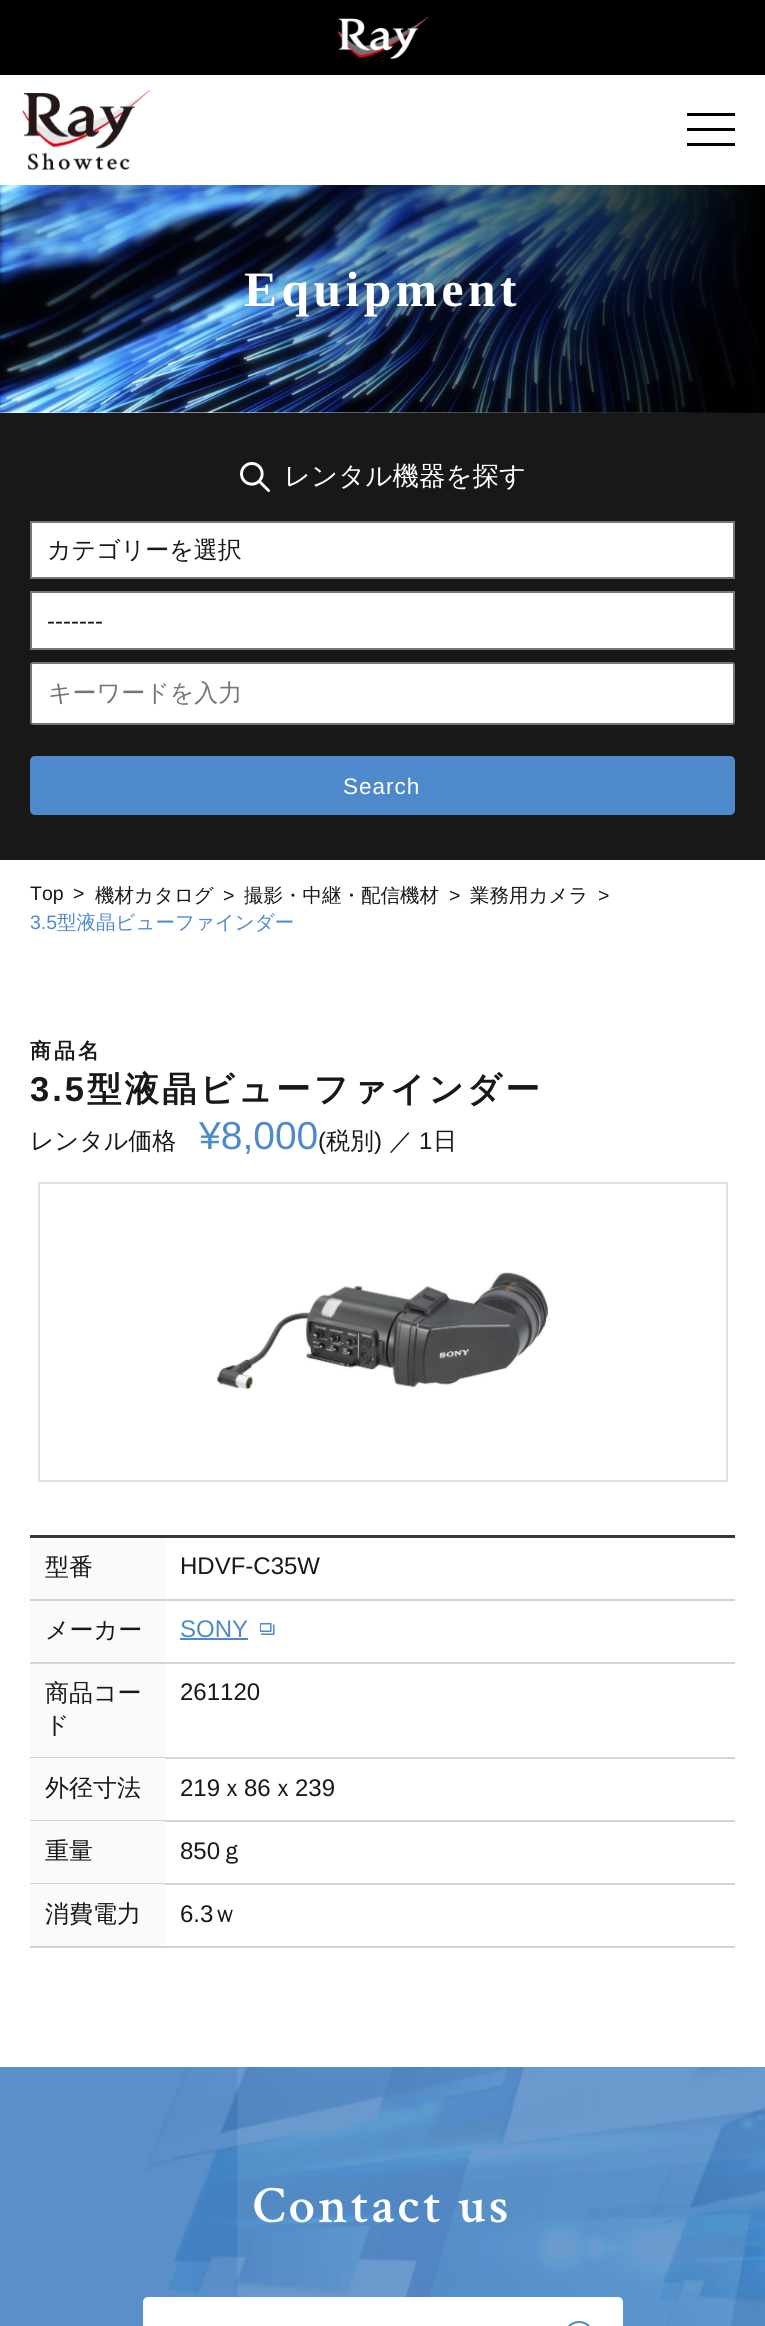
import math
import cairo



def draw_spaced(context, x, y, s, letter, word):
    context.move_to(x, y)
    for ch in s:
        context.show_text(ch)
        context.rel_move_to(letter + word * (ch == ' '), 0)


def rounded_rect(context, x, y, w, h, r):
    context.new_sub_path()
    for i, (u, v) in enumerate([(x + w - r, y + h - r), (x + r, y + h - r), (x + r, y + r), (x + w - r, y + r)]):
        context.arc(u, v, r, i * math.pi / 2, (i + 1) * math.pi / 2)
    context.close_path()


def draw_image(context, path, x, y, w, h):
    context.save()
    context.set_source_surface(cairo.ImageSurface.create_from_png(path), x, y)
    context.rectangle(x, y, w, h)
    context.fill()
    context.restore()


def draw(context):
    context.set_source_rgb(1, 1, 1)
    context.paint()
    context.set_source_rgb(0, 0, 0)
    context.rectangle(0, 0, 765, 75)
    context.fill()
    draw_image(context, "images/1.png", 337, 16, 92, 43)
    draw_image(context, "images/2.png", 22, 90, 128, 80)
    context.rectangle(687, 113, 48, 3)
    context.fill()
    context.rectangle(687, 128, 48, 3)
    context.fill()
    context.rectangle(687, 143, 48, 3)
    context.fill()
    draw_image(context, "images/3.png", 0, 185, 762, 228)
    gradient = cairo.LinearGradient(0, 283, 765, 283)
    gradient.add_color_stop_rgba(0.3, 0, 0, 0, 0)
    gradient.add_color_stop_rgba(1, 0, 0, 0, 1)
    context.set_source(gradient)
    context.rectangle(241, 185, 524, 228)
    context.fill()
    context.set_source_rgb(24 / 255, 24 / 255, 24 / 255)
    context.rectangle(0, 413, 765, 447)
    context.fill()
    draw_image(context, "images/4.png", 240, 462, 30, 30)
    context.set_source_rgb(1, 1, 1)
    context.rectangle(31, 522, 703, 56)
    context.fill_preserve()
    context.set_source_rgb(118 / 255, 118 / 255, 118 / 255)
    context.stroke()
    context.set_source_rgb(1, 1, 1)
    context.rectangle(31, 592, 703, 57)
    context.fill_preserve()
    context.set_source_rgb(118 / 255, 118 / 255, 118 / 255)
    context.stroke()
    context.set_source_rgb(1, 1, 1)
    rounded_rect(context, 31, 663, 703, 61, 2)
    context.fill_preserve()
    context.set_source_rgb(118 / 255, 118 / 255, 118 / 255)
    context.stroke()
    context.set_source_rgb(78 / 255, 138 / 255, 203 / 255)
    rounded_rect(context, 30, 756, 705, 59, 5)
    context.fill()
    context.rectangle(39, 1183, 688, 298)
    context.set_source_rgb(225 / 255, 225 / 255, 225 / 255)
    context.stroke()
    draw_image(context, "images/5.png", 216, 1272, 333, 118)
    context.set_source_rgb(51 / 255, 55 / 255, 63 / 255)
    context.rectangle(30, 1535, 705, 3)
    context.fill()
    context.set_source_rgb(212 / 255, 212 / 255, 212 / 255)
    context.rectangle(30, 1599, 705, 2)
    context.fill()
    context.set_source_rgb(250 / 255, 250 / 255, 250 / 255)
    context.rectangle(30, 1538, 135, 61)
    context.fill()
    context.set_source_rgb(212 / 255, 212 / 255, 212 / 255)
    context.rectangle(30, 1662, 705, 2)
    context.fill()
    context.set_source_rgb(250 / 255, 250 / 255, 250 / 255)
    context.rectangle(30, 1601, 135, 61)
    context.fill()
    context.set_source_rgb(78 / 255, 138 / 255, 203 / 255)
    context.rectangle(180, 1638, 68, 2)
    context.fill()
    draw_image(context, "images/6.png", 260, 1623, 15, 12)
    context.set_source_rgb(212 / 255, 212 / 255, 212 / 255)
    context.rectangle(30, 1757, 705, 2)
    context.fill()
    context.set_source_rgb(250 / 255, 250 / 255, 250 / 255)
    context.rectangle(30, 1664, 135, 93)
    context.fill()
    context.set_source_rgb(212 / 255, 212 / 255, 212 / 255)
    context.rectangle(30, 1820, 705, 2)
    context.fill()
    context.set_source_rgb(250 / 255, 250 / 255, 250 / 255)
    context.rectangle(30, 1758, 135, 62)
    context.fill()
    context.set_source_rgb(212 / 255, 212 / 255, 212 / 255)
    context.rectangle(30, 1883, 705, 2)
    context.fill()
    context.set_source_rgb(250 / 255, 250 / 255, 250 / 255)
    context.rectangle(30, 1821, 135, 62)
    context.fill()
    context.set_source_rgb(212 / 255, 212 / 255, 212 / 255)
    context.rectangle(30, 1946, 705, 2)
    context.fill()
    context.set_source_rgb(250 / 255, 250 / 255, 250 / 255)
    context.rectangle(30, 1884, 135, 62)
    context.fill()
    draw_image(context, "images/7.png", 0, 2067, 765, 259)
    context.set_source_rgb(1, 1, 1)
    rounded_rect(context, 143, 2297, 480, 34, 5)
    context.fill()
    rounded_rect(context, 565, 2322, 28, 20, 14)
    context.set_source_rgb(78 / 255, 138 / 255, 203 / 255)
    context.stroke()
    context.select_font_face("Liberation Serif", cairo.FontSlant.NORMAL, cairo.FontWeight.BOLD)
    context.set_font_size(49.5)
    context.set_source_rgb(1, 1, 1)
    draw_spaced(context, 244, 306, "Equipment", 4.5, 0)
    context.select_font_face("WenQuanYi Zen Hei Medium")
    context.set_font_size(26.5)
    context.move_to(284, 485)
    context.show_text("レンタル機器を探す")
    context.set_font_size(24)
    context.set_source_rgb(24 / 255, 24 / 255, 24 / 255)
    context.move_to(47, 558)
    context.show_text("カテゴリーを選択")
    context.select_font_face("Liberation Sans")
    context.move_to(47, 629)
    context.show_text("-------")
    context.select_font_face("WenQuanYi Zen Hei Medium")
    context.set_source_rgb(117 / 255, 117 / 255, 117 / 255)
    context.move_to(48, 701)
    context.show_text("キーワードを入力")
    context.select_font_face("Liberation Sans")
    context.set_font_size(22.5)
    context.set_source_rgb(1, 1, 1)
    draw_spaced(context, 343, 794, "Search", 1, 0)
    context.set_font_size(19.5)
    context.set_source_rgb(24 / 255, 24 / 255, 24 / 255)
    context.move_to(30, 900)
    context.show_text("Top")
    context.move_to(73, 900)
    context.show_text(">")
    context.select_font_face("WenQuanYi Zen Hei Medium")
    context.move_to(95, 902)
    context.show_text("機材カタログ")
    context.select_font_face("Liberation Sans")
    context.move_to(223, 902)
    context.show_text(">")
    context.select_font_face("WenQuanYi Zen Hei Medium")
    context.move_to(244, 902)
    context.show_text("撮影・中継・配信機材")
    context.select_font_face("Liberation Sans")
    context.move_to(449, 902)
    context.show_text(">")
    context.select_font_face("WenQuanYi Zen Hei Medium")
    context.move_to(470, 902)
    context.show_text("業務用カメラ")
    context.select_font_face("Liberation Sans")
    context.move_to(598, 902)
    context.show_text(">")
    context.set_source_rgb(78 / 255, 138 / 255, 203 / 255)
    context.move_to(30, 929)
    context.show_text("3.5")
    context.select_font_face("WenQuanYi Zen Hei Medium")
    context.move_to(57, 929)
    context.show_text("型液晶ビューファインダー")
    context.select_font_face("WenQuanYi Zen Hei", cairo.FontSlant.NORMAL, cairo.FontWeight.BOLD)
    context.set_font_size(21)
    context.set_source_rgb(24 / 255, 24 / 255, 24 / 255)
    draw_spaced(context, 30, 1058, "商品名", 3, 0)
    context.select_font_face("Liberation Sans", cairo.FontSlant.NORMAL, cairo.FontWeight.BOLD)
    context.set_font_size(34.5)
    draw_spaced(context, 30, 1101, "3.5", 3, 0)
    context.select_font_face("WenQuanYi Zen Hei", cairo.FontSlant.NORMAL, cairo.FontWeight.BOLD)
    draw_spaced(context, 87, 1101, "型液晶ビューファインダー", 3, 0)
    context.select_font_face("WenQuanYi Zen Hei Medium")
    context.set_font_size(24)
    context.move_to(30, 1149)
    context.show_text("レンタル価格")
    context.select_font_face("Liberation Sans")
    context.set_font_size(39)
    context.set_source_rgb(78 / 255, 138 / 255, 203 / 255)
    context.move_to(199, 1149)
    context.show_text("¥8,000")
    context.set_font_size(24)
    context.set_source_rgb(24 / 255, 24 / 255, 24 / 255)
    context.move_to(318, 1149)
    context.show_text("(")
    context.select_font_face("WenQuanYi Zen Hei Medium")
    context.move_to(326, 1149)
    context.show_text("税別")
    context.select_font_face("Liberation Sans")
    context.move_to(374, 1149)
    context.show_text(")")
    context.select_font_face("WenQuanYi Zen Hei Medium")
    context.move_to(389, 1149)
    context.show_text("／")
    context.select_font_face("Liberation Sans")
    context.move_to(419, 1149)
    context.show_text("1")
    context.select_font_face("WenQuanYi Zen Hei Medium")
    context.move_to(433, 1149)
    context.show_text("日")
    context.move_to(45, 1575)
    context.show_text("型番")
    context.select_font_face("Liberation Sans")
    context.move_to(180, 1574)
    context.show_text("HDVF-C35W")
    context.select_font_face("WenQuanYi Zen Hei Medium")
    context.move_to(45, 1638)
    context.show_text("メーカー")
    context.select_font_face("Liberation Sans")
    context.set_source_rgb(78 / 255, 138 / 255, 203 / 255)
    context.move_to(180, 1637)
    context.show_text("SONY")
    context.select_font_face("WenQuanYi Zen Hei Medium")
    context.set_source_rgb(24 / 255, 24 / 255, 24 / 255)
    context.move_to(45, 1701)
    context.show_text("商品コー")
    context.move_to(45, 1733)
    context.show_text("ド")
    context.select_font_face("Liberation Sans")
    context.move_to(180, 1700)
    context.show_text("261120")
    context.select_font_face("WenQuanYi Zen Hei Medium")
    context.move_to(45, 1796)
    context.show_text("外径寸法")
    context.select_font_face("Liberation Sans")
    context.move_to(180, 1796)
    context.show_text("219")
    context.select_font_face("WenQuanYi Zen Hei Medium")
    context.move_to(220, 1796)
    context.show_text("ｘ")
    context.select_font_face("Liberation Sans")
    context.move_to(244, 1796)
    context.show_text("86")
    context.select_font_face("WenQuanYi Zen Hei Medium")
    context.move_to(271, 1796)
    context.show_text("ｘ")
    context.select_font_face("Liberation Sans")
    context.move_to(295, 1796)
    context.show_text("239")
    context.select_font_face("WenQuanYi Zen Hei Medium")
    context.move_to(45, 1859)
    context.show_text("重量")
    context.select_font_face("Liberation Sans")
    context.move_to(180, 1859)
    context.show_text("850")
    context.select_font_face("WenQuanYi Zen Hei Medium")
    context.move_to(220, 1859)
    context.show_text("ｇ")
    context.move_to(45, 1922)
    context.show_text("消費電力")
    context.select_font_face("Liberation Sans")
    context.move_to(180, 1922)
    context.show_text("6.3")
    context.select_font_face("WenQuanYi Zen Hei Medium")
    context.move_to(213, 1922)
    context.show_text("ｗ")
    context.select_font_face("Crimson Text SemiBold")
    context.set_font_size(52.5)
    context.set_source_rgb(1, 1, 1)
    draw_spaced(context, 253, 2222, "Contact us", 3, 0)


surface = cairo.ImageSurface(cairo.Format.RGB24, 765, 2326)
context = cairo.Context(surface)
options = cairo.FontOptions()
options.set_hint_metrics(cairo.HintMetrics.OFF)
options.set_hint_style(cairo.HintStyle.NONE)
context.set_font_options(options)
context.set_miter_limit(4)
draw(context)
surface.write_to_png("out.png")
